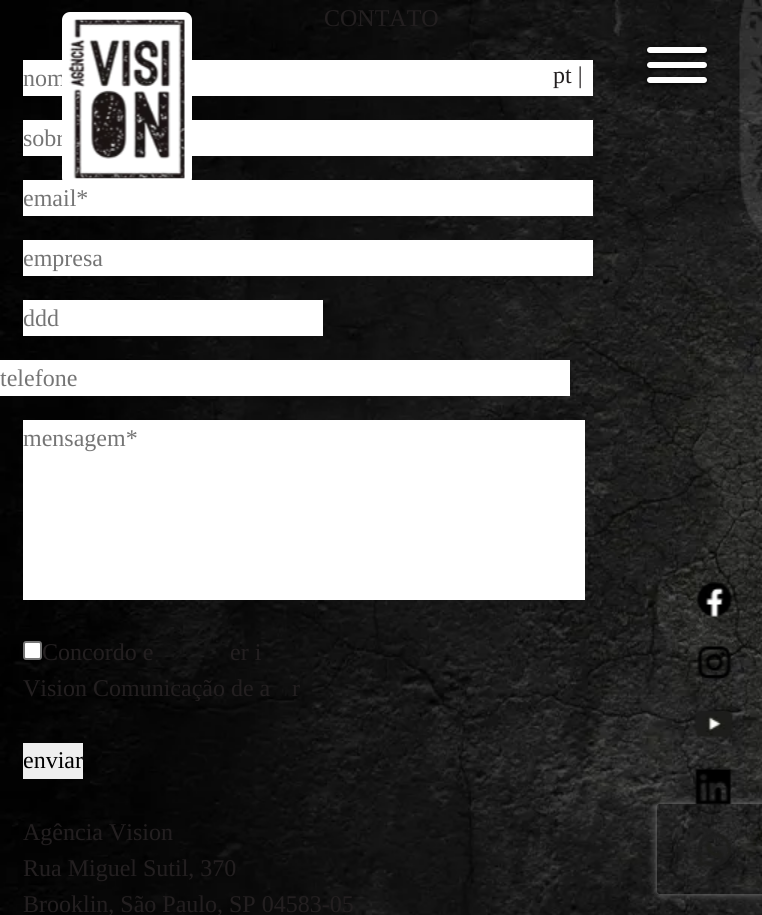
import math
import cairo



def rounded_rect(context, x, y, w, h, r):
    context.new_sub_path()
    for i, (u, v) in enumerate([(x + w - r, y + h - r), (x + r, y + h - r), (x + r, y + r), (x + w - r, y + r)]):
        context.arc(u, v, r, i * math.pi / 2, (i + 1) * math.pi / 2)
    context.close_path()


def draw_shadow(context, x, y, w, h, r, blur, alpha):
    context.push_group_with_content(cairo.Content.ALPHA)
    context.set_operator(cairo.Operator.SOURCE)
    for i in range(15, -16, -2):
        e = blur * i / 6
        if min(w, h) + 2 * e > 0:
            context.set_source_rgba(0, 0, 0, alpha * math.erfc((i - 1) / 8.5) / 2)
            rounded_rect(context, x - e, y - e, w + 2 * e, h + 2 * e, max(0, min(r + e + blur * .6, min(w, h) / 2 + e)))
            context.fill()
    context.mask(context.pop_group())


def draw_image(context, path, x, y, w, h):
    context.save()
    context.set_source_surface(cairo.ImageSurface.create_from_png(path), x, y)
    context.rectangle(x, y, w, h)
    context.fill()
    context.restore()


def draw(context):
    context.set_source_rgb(1, 1, 1)
    context.paint()
    draw_image(context, "images/1.png", 0, 0, 762, 915)
    context.set_source_rgb(1, 1, 1)
    context.rectangle(23, 60, 570, 36)
    context.fill()
    context.rectangle(23, 120, 570, 36)
    context.fill()
    context.rectangle(23, 180, 570, 36)
    context.fill()
    context.rectangle(23, 240, 570, 36)
    context.fill()
    context.rectangle(23, 300, 300, 36)
    context.fill()
    context.rectangle(0, 360, 570, 36)
    context.fill()
    context.rectangle(23, 420, 562, 180)
    context.fill()
    rounded_rect(context, 24, 642, 17, 17, 2)
    context.fill_preserve()
    context.set_source_rgb(118 / 255, 118 / 255, 118 / 255)
    context.stroke()
    context.set_source_rgb(239 / 255, 239 / 255, 239 / 255)
    context.rectangle(23, 743, 60, 36)
    context.fill()
    context.set_source_rgb(0, 0, 0)
    draw_shadow(context, 647, 78, 60, 6, 3, 2, 1)
    context.set_source_rgb(1, 1, 1)
    rounded_rect(context, 647, 77, 60, 6, 3)
    context.fill()
    context.set_source_rgb(0, 0, 0)
    draw_shadow(context, 647, 48, 60, 6, 3, 2, 1)
    context.set_source_rgb(1, 1, 1)
    rounded_rect(context, 647, 47, 60, 6, 3)
    context.fill()
    context.set_source_rgb(0, 0, 0)
    draw_shadow(context, 647, 63, 60, 6, 3, 2, 1)
    context.set_source_rgb(1, 1, 1)
    rounded_rect(context, 647, 62, 60, 6, 3)
    context.fill()
    draw_image(context, "images/3.png", 697, 582, 36, 35)
    draw_image(context, "images/4.png", 697, 646, 35, 34)
    draw_image(context, "images/5.png", 694, 710, 39, 28)
    context.save()
    context.set_fill_rule(cairo.FillRule.EVEN_ODD)
    context.new_path()
    context.move_to(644, 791)
    context.line_to(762, 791)
    context.line_to(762, 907)
    context.line_to(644, 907)
    context.close_path()
    context.move_to(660, 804)
    context.line_to(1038, 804)
    context.curve_to(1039.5, 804, 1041, 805.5, 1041, 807)
    context.line_to(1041, 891)
    context.curve_to(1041, 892.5, 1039.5, 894, 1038, 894)
    context.line_to(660, 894)
    context.curve_to(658.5, 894, 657, 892.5, 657, 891)
    context.line_to(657, 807)
    context.curve_to(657, 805.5, 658.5, 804, 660, 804)
    context.close_path()
    context.clip()
    context.set_source_rgb(128 / 255, 128 / 255, 128 / 255)
    draw_shadow(context, 657, 804, 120, 90, 3, 4, 1)
    context.restore()
    draw_image(context, "images/6.png", 695, 769, 37, 36)
    draw_image(context, "images/7.png", 697, 832, 34, 35)
    context.select_font_face("Liberation Serif")
    context.set_font_size(24)
    context.set_source_rgb(35 / 255, 31 / 255, 32 / 255)
    context.move_to(324, 26)
    context.show_text("CONTATO")
    context.set_source_rgb(117 / 255, 117 / 255, 117 / 255)
    context.move_to(23, 86)
    context.show_text("nom")
    context.move_to(23, 146)
    context.show_text("sobr")
    context.move_to(23, 206)
    context.show_text("email*")
    context.move_to(23, 266)
    context.show_text("empresa")
    context.move_to(23, 326)
    context.show_text("ddd")
    context.move_to(0, 386)
    context.show_text("telefone")
    context.move_to(23, 446)
    context.show_text("mensagem*")
    context.set_source_rgb(35 / 255, 31 / 255, 32 / 255)
    context.move_to(42, 660)
    context.show_text("Concordo e")
    context.move_to(230, 660)
    context.show_text("er i")
    context.move_to(23, 696)
    context.show_text("Vision Comunicação de a")
    context.move_to(292, 696)
    context.show_text("r")
    context.set_source_rgb(0, 0, 0)
    context.move_to(23, 768)
    context.show_text("enviar")
    context.set_source_rgb(35 / 255, 31 / 255, 32 / 255)
    context.move_to(23, 840)
    context.show_text("Agência Vision")
    context.move_to(23, 876)
    context.show_text("Rua Miguel Sutil, 370")
    context.move_to(23, 912)
    context.show_text("Brooklin, São Paulo, SP 04583-05")
    context.set_source_rgb(1, 1, 1)
    rounded_rect(context, 62, 12, 130, 174, 8)
    context.fill()
    draw_image(context, "images/2.png", 68, 19, 117, 160)
    context.set_source_rgb(35 / 255, 31 / 255, 32 / 255)
    context.move_to(553, 83)
    context.show_text("pt |")


surface = cairo.ImageSurface(cairo.Format.RGB24, 762, 915)
context = cairo.Context(surface)
options = cairo.FontOptions()
options.set_hint_metrics(cairo.HintMetrics.OFF)
options.set_hint_style(cairo.HintStyle.NONE)
context.set_font_options(options)
context.set_miter_limit(4)
draw(context)
surface.write_to_png("out.png")
